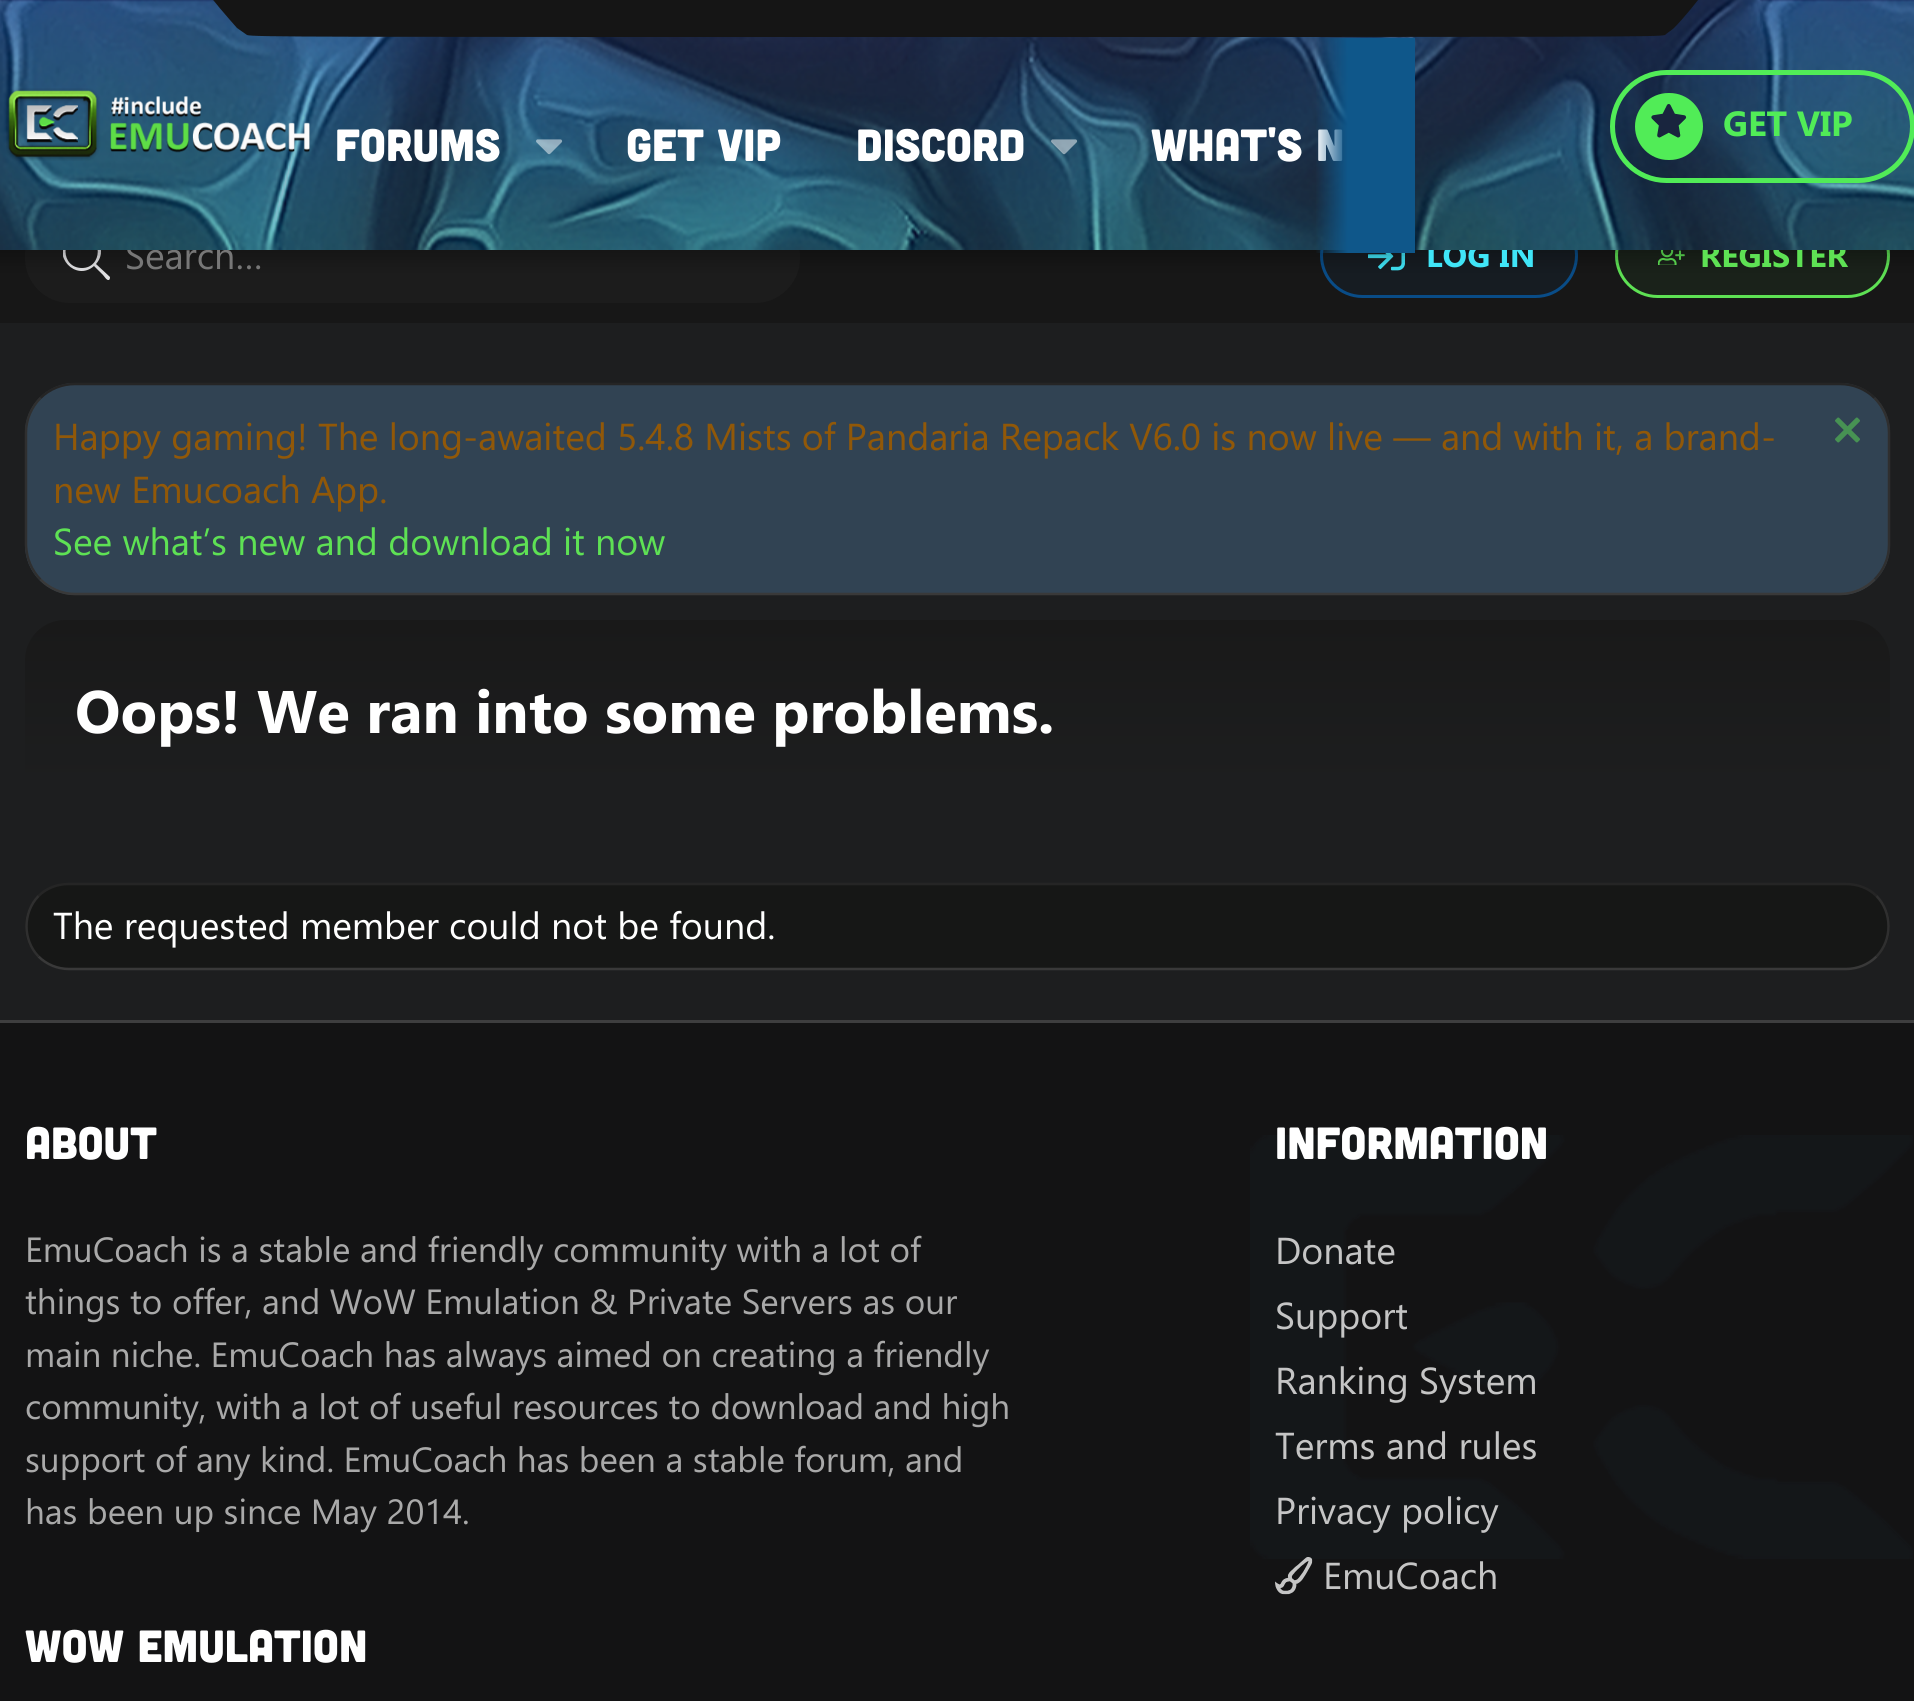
import math
import cairo



def rounded_rect(context, x, y, w, h, r):
    context.new_sub_path()
    for i, (u, v) in enumerate([(x + w - r, y + h - r), (x + r, y + h - r), (x + r, y + r), (x + w - r, y + r)]):
        context.arc(u, v, r, i * math.pi / 2, (i + 1) * math.pi / 2)
    context.close_path()


def draw_shadow(context, x, y, w, h, r, blur, alpha):
    context.push_group_with_content(cairo.Content.ALPHA)
    context.set_operator(cairo.Operator.SOURCE)
    for i in range(15, -16, -2):
        e = blur * i / 6
        if min(w, h) + 2 * e > 0:
            context.set_source_rgba(0, 0, 0, alpha * math.erfc((i - 1) / 8.5) / 2)
            rounded_rect(context, x - e, y - e, w + 2 * e, h + 2 * e, max(0, min(r + e + blur * .6, min(w, h) / 2 + e)))
            context.fill()
    context.mask(context.pop_group())


def draw_image(context, path, x, y, w, h):
    context.save()
    context.set_source_surface(cairo.ImageSurface.create_from_png(path), x, y)
    context.rectangle(x, y, w, h)
    context.fill()
    context.restore()


def draw(context):
    context.set_source_rgb(29 / 255, 30 / 255, 31 / 255)
    context.paint()
    context.set_source_rgb(23 / 255, 23 / 255, 23 / 255)
    context.rectangle(0, 250, 1914, 73)
    context.fill()
    context.set_source_rgb(28 / 255, 28 / 255, 28 / 255)
    rounded_rect(context, 25, 210, 775, 93, 45)
    context.fill()
    context.save()
    context.rectangle(63, 233, 47, 47)
    context.clip()
    context.set_source_rgb(228 / 255, 228 / 255, 230 / 255)
    context.new_path()
    context.move_to(110, 277)
    context.line_to(96, 264)
    context.curve_to(112, 246, 86, 221, 68, 238)
    context.curve_to(51, 256, 76, 282, 94, 266)
    context.line_to(103, 275)
    context.curve_to(104, 276, 107, 281, 109, 280)
    context.curve_to(110, 279, 110, 278, 110, 277)
    context.close_path()
    context.move_to(82, 268)
    context.curve_to(60, 268, 60, 235, 82, 235)
    context.curve_to(103, 235, 103, 268, 82, 268)
    context.close_path()
    context.fill()
    context.restore()
    context.set_source_rgb(22 / 255, 28 / 255, 34 / 255)
    rounded_rect(context, 1321.5, 214.5, 255, 82, 41)
    context.fill_preserve()
    context.set_source_rgb(9 / 255, 76 / 255, 135 / 255)
    context.set_line_width(3)
    context.stroke()
    draw_image(context, "images/6.png", 1368, 253, 37, 18)
    context.set_source_rgb(26 / 255, 34 / 255, 26 / 255)
    rounded_rect(context, 1616.5, 214.5, 272, 82, 41)
    context.fill_preserve()
    context.set_source_rgb(94 / 255, 225 / 255, 84 / 255)
    context.stroke()
    draw_image(context, "images/7.png", 1658, 250, 27, 15)
    context.set_source_rgb(0, 0, 0)
    draw_shadow(context, -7, -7, 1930, 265, 0, 10, 0.3)
    context.set_source_rgb(49 / 255, 67 / 255, 83 / 255)
    rounded_rect(context, 25, 383, 1865, 212, 50)
    context.fill()
    context.new_path()
    context.move_to(40.5, 398)
    context.curve_to(49.5, 389, 62, 384, 75, 384)
    context.line_to(1840, 384)
    context.curve_to(1853, 384, 1865.5, 389, 1874.5, 398)
    context.set_source_rgb(37 / 255, 37 / 255, 37 / 255)
    context.set_line_width(2.5)
    context.stroke()
    context.new_path()
    context.move_to(1874.5, 398)
    context.curve_to(1883.5, 407, 1889, 419.5, 1889, 432.5)
    context.line_to(1889, 545)
    context.curve_to(1889, 558, 1883.5, 570.5, 1874.5, 579.5)
    context.set_source_rgb(47 / 255, 47 / 255, 47 / 255)
    context.stroke()
    context.new_path()
    context.move_to(1874.5, 579.5)
    context.curve_to(1865.5, 588.5, 1853, 594, 1840, 594)
    context.line_to(75, 594)
    context.curve_to(62, 594, 49.5, 588.5, 40.5, 579.5)
    context.set_source_rgb(57 / 255, 57 / 255, 57 / 255)
    context.stroke()
    context.new_path()
    context.move_to(40.5, 579.5)
    context.curve_to(31.5, 570.5, 26.5, 558, 26, 545)
    context.line_to(26, 432.5)
    context.curve_to(26, 419.5, 31.5, 407, 40.5, 398)
    context.set_source_rgb(47 / 255, 47 / 255, 47 / 255)
    context.stroke()
    draw_image(context, "images/8.png", 1835, 417, 25, 26)
    gradient = cairo.LinearGradient(958, 620, 958, 883)
    gradient.add_color_stop_rgba(0, 25 / 255, 25 / 255, 25 / 255, 1)
    gradient.add_color_stop_rgba(0.63, 29 / 255, 30 / 255, 31 / 255, 1)
    gradient.add_color_stop_rgba(1, 29 / 255, 30 / 255, 31 / 255, 1)
    context.set_source(gradient)
    context.new_path()
    context.move_to(65, 620)
    context.line_to(1850, 620)
    context.curve_to(1872, 620, 1890, 638, 1890, 660)
    context.line_to(1890, 883)
    context.line_to(25, 883)
    context.line_to(25, 660)
    context.curve_to(25, 638, 43, 620, 65, 620)
    context.close_path()
    context.fill()
    context.set_source_rgb(22 / 255, 23 / 255, 22 / 255)
    rounded_rect(context, 25, 883, 1865, 87, 43.5)
    context.fill()
    context.new_path()
    context.move_to(38.5, 896)
    context.curve_to(46.5, 888, 57.5, 884, 68.5, 884)
    context.line_to(1846, 884)
    context.curve_to(1857.5, 884, 1868.5, 888, 1876.5, 896)
    context.set_source_rgb(37 / 255, 37 / 255, 37 / 255)
    context.stroke()
    context.new_path()
    context.move_to(1876.5, 896)
    context.curve_to(1892.5, 912.5, 1892.5, 940, 1876.5, 956.5)
    context.set_source_rgb(47 / 255, 47 / 255, 47 / 255)
    context.stroke()
    context.new_path()
    context.move_to(1876.5, 956.5)
    context.curve_to(1868.5, 964.5, 1857.5, 969, 1846, 969)
    context.line_to(69, 969)
    context.curve_to(57.5, 969, 46.5, 964.5, 38.5, 956.5)
    context.set_source_rgb(57 / 255, 57 / 255, 57 / 255)
    context.stroke()
    context.new_path()
    context.move_to(38.5, 956.5)
    context.curve_to(22.5, 940, 22.5, 912.5, 38.5, 896)
    context.set_source_rgb(47 / 255, 47 / 255, 47 / 255)
    context.stroke()
    context.set_source_rgb(19 / 255, 19 / 255, 20 / 255)
    context.rectangle(0, 1023, 1914, 678)
    context.fill()
    context.set_source_rgb(62 / 255, 62 / 255, 63 / 255)
    context.rectangle(0, 1020, 1914, 3)
    context.fill()
    draw_image(context, "images/9.png", 1250, 1135, 663, 424)
    draw_image(context, "images/10.png", 1275, 1557, 38, 38)
    context.select_font_face("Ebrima")
    context.set_font_size(37.5)
    context.set_source_rgb(119 / 255, 119 / 255, 119 / 255)
    context.move_to(125, 269)
    context.show_text("Search…")
    context.select_font_face("Ebrima", cairo.FontSlant.NORMAL, cairo.FontWeight.BOLD)
    context.set_font_size(32.5)
    context.set_source_rgb(64 / 255, 229 / 255, 247 / 255)
    context.move_to(1426, 267)
    context.show_text("LOG IN")
    context.set_source_rgb(94 / 255, 225 / 255, 84 / 255)
    context.move_to(1700, 267)
    context.show_text("REGISTER")
    draw_image(context, "images/1.png", 0, 0, 1914, 250)
    context.select_font_face("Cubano")
    context.set_font_size(45)
    context.set_source_rgb(1, 1, 1)
    context.move_to(1151, 161)
    context.show_text("What's n")
    gradient = cairo.LinearGradient(1315, 145, 1415, 145)
    gradient.add_color_stop_rgba(0, 15 / 255, 87 / 255, 138 / 255, 0)
    gradient.add_color_stop_rgba(0.33, 15 / 255, 87 / 255, 138 / 255, 1)
    context.set_source(gradient)
    context.rectangle(1316, 38, 99, 215)
    context.fill()
    draw_image(context, "images/5.png", 1051, 139, 27, 16)
    draw_image(context, "images/4.png", 536, 139, 27, 16)
    context.set_source_rgb(1, 1, 1)
    context.move_to(856, 161)
    context.show_text("Discord")
    context.move_to(626, 161)
    context.show_text("Get VIP")
    context.move_to(335, 161)
    context.show_text("Forums")
    rounded_rect(context, 1612.5, 72.5, 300, 108, 54)
    context.set_source_rgb(81 / 255, 236 / 255, 87 / 255)
    context.set_line_width(5)
    context.stroke()
    rounded_rect(context, 1635, 93, 68, 67, 33.5)
    context.fill()
    draw_image(context, "images/3.png", 1651, 104, 36, 34)
    context.select_font_face("Ebrima", cairo.FontSlant.NORMAL, cairo.FontWeight.BOLD)
    context.set_font_size(35)
    context.move_to(1723, 136)
    context.show_text("GET VIP")
    draw_image(context, "images/2.png", 6, 88, 304, 73)
    context.set_source_rgb(21 / 255, 21 / 255, 21 / 255)
    context.new_path()
    context.move_to(209, -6)
    context.curve_to(209, -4, 229, 19, 237, 28)
    context.curve_to(240, 30, 244, 33, 247, 35)
    context.curve_to(252, 37, 308, 37, 956, 37)
    context.curve_to(1604, 37, 1660, 37, 1665, 35)
    context.curve_to(1667, 33, 1672, 30, 1674, 28)
    context.curve_to(1683, 19, 1702, -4, 1702, -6)
    context.curve_to(1702, -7, 1419, -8, 956, -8)
    context.curve_to(493, -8, 209, -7, 209, -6)
    context.close_path()
    context.fill()
    context.select_font_face("Ebrima")
    context.set_font_size(37.5)
    context.set_source_rgb(145 / 255, 88 / 255, 8 / 255)
    context.move_to(53, 450)
    context.show_text("Happy gaming! The long-awaited 5.4.8 Mists of Pandaria Repack V6.0 is now live — and with it, a brand-")
    context.move_to(53, 503)
    context.show_text("new Emucoach App.")
    context.set_source_rgb(94 / 255, 225 / 255, 84 / 255)
    context.move_to(53, 555)
    context.show_text("See what’s new and download it now")
    context.select_font_face("Ebrima", cairo.FontSlant.NORMAL, cairo.FontWeight.BOLD)
    context.set_font_size(60)
    context.set_source_rgb(1, 1, 1)
    context.move_to(75, 733)
    context.show_text("Oops! We ran into some problems.")
    context.select_font_face("Ebrima")
    context.set_font_size(37.5)
    context.move_to(53, 939)
    context.show_text("The requested member could not be found.")
    context.select_font_face("Cubano")
    context.set_font_size(45)
    context.move_to(25, 1159)
    context.show_text("About")
    context.select_font_face("Ebrima")
    context.set_font_size(35)
    context.set_source_rgb(169 / 255, 169 / 255, 169 / 255)
    context.move_to(25, 1262)
    context.show_text("EmuCoach is a stable and friendly community with a lot of")
    context.move_to(25, 1314)
    context.show_text("things to offer, and WoW Emulation & Private Servers as our")
    context.move_to(25, 1367)
    context.show_text("main niche. EmuCoach has always aimed on creating a friendly")
    context.move_to(25, 1419)
    context.show_text("community, with a lot of useful resources to download and high")
    context.move_to(25, 1472)
    context.show_text("support of any kind. EmuCoach has been a stable forum, and")
    context.move_to(25, 1524)
    context.show_text("has been up since May 2014.")
    context.select_font_face("Cubano")
    context.set_font_size(45)
    context.set_source_rgb(1, 1, 1)
    context.move_to(1275, 1159)
    context.show_text("Information")
    context.select_font_face("Ebrima")
    context.set_font_size(37.5)
    context.set_source_rgb(197 / 255, 197 / 255, 197 / 255)
    context.move_to(1275, 1264)
    context.show_text("Donate")
    context.move_to(1275, 1329)
    context.show_text("Support")
    context.move_to(1275, 1394)
    context.show_text("Ranking System")
    context.move_to(1275, 1459)
    context.show_text("Terms and rules")
    context.move_to(1275, 1524)
    context.show_text("Privacy policy")
    context.move_to(1323, 1589)
    context.show_text("EmuCoach")
    context.select_font_face("Cubano")
    context.set_font_size(45)
    context.set_source_rgb(1, 1, 1)
    context.move_to(25, 1662)
    context.show_text("Wow Emulation")


surface = cairo.ImageSurface(cairo.Format.RGB24, 1914, 1701)
context = cairo.Context(surface)
options = cairo.FontOptions()
options.set_hint_metrics(cairo.HintMetrics.OFF)
options.set_hint_style(cairo.HintStyle.NONE)
context.set_font_options(options)
context.set_miter_limit(4)
draw(context)
surface.write_to_png("out.png")
